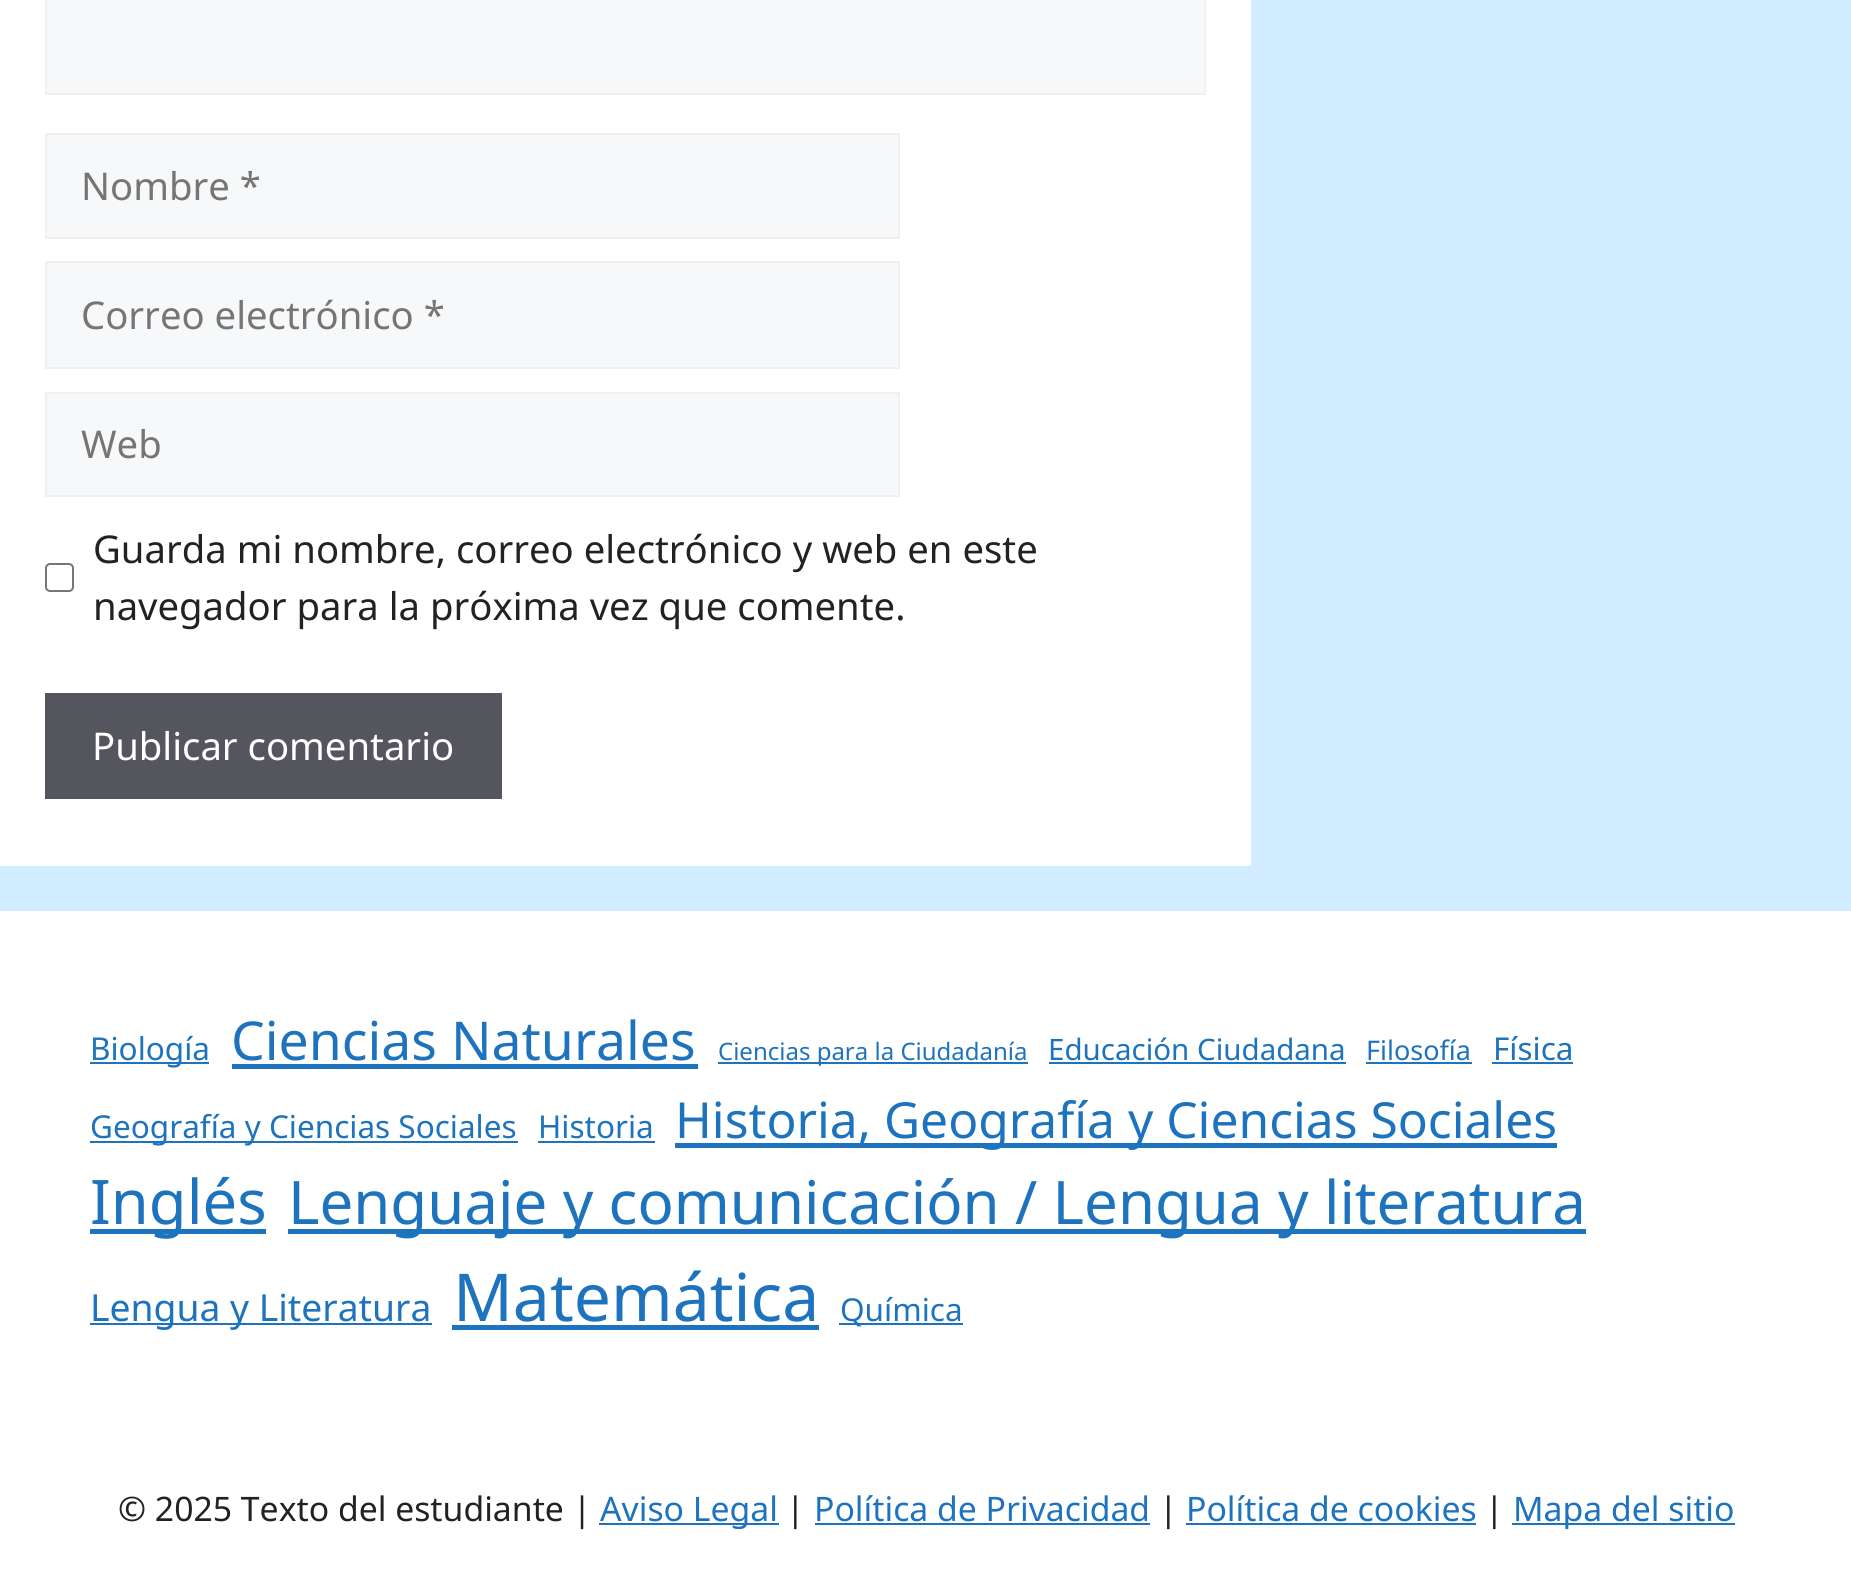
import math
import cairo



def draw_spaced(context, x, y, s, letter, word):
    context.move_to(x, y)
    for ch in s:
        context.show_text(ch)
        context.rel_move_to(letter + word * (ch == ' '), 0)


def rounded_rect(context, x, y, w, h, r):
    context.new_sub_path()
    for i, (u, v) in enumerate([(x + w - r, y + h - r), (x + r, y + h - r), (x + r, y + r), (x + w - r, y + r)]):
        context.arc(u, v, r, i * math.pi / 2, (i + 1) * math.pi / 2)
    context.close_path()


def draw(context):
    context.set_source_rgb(210 / 255, 236 / 255, 1)
    context.paint()
    context.set_source_rgb(1, 1, 1)
    context.rectangle(0, 0, 1251, 866)
    context.fill()
    context.set_source_rgb(247 / 255, 248 / 255, 249 / 255)
    context.rectangle(46, -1, 1159, 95)
    context.fill_preserve()
    context.set_source_rgb(240 / 255, 240 / 255, 240 / 255)
    context.stroke()
    context.set_source_rgb(247 / 255, 248 / 255, 249 / 255)
    context.rectangle(46, 134, 853, 104)
    context.fill_preserve()
    context.set_source_rgb(240 / 255, 240 / 255, 240 / 255)
    context.stroke()
    context.set_source_rgb(247 / 255, 248 / 255, 249 / 255)
    context.rectangle(46, 262, 853, 106)
    context.fill_preserve()
    context.set_source_rgb(240 / 255, 240 / 255, 240 / 255)
    context.stroke()
    context.set_source_rgb(247 / 255, 248 / 255, 249 / 255)
    context.rectangle(46, 393, 853, 103)
    context.fill_preserve()
    context.set_source_rgb(240 / 255, 240 / 255, 240 / 255)
    context.stroke()
    rounded_rect(context, 46, 564, 27, 27, 4)
    context.set_source_rgb(118 / 255, 118 / 255, 118 / 255)
    context.stroke()
    context.set_source_rgb(85 / 255, 85 / 255, 94 / 255)
    context.rectangle(45, 693, 457, 106)
    context.fill()
    context.set_source_rgb(1, 1, 1)
    context.rectangle(0, 911, 1851, 666)
    context.fill()
    context.set_source_rgb(30 / 255, 115 / 255, 190 / 255)
    context.rectangle(90, 1062, 119, 2)
    context.fill()
    context.rectangle(232, 1064, 466, 5)
    context.fill()
    context.rectangle(718, 1062, 310, 2)
    context.fill()
    context.rectangle(1049, 1062, 297, 2)
    context.fill()
    context.rectangle(1366, 1062, 106, 2)
    context.fill()
    context.rectangle(1492, 1062, 81, 2)
    context.fill()
    context.rectangle(90, 1141, 428, 2)
    context.fill()
    context.rectangle(538, 1141, 117, 2)
    context.fill()
    context.rectangle(675, 1143, 882, 5)
    context.fill()
    context.rectangle(90, 1229, 176, 5)
    context.fill()
    context.rectangle(288, 1229, 1298, 5)
    context.fill()
    context.rectangle(90, 1323, 342, 2)
    context.fill()
    context.rectangle(452, 1325, 367, 5)
    context.fill()
    context.rectangle(839, 1323, 124, 2)
    context.fill()
    context.rectangle(599, 1523, 180, 2)
    context.fill()
    context.rectangle(815, 1523, 335, 2)
    context.fill()
    context.rectangle(1186, 1523, 290, 2)
    context.fill()
    context.rectangle(1512, 1523, 223, 2)
    context.fill()
    context.select_font_face("Noto Sans")
    context.set_font_size(38.25)
    context.set_source_rgb(117 / 255, 117 / 255, 117 / 255)
    context.move_to(81, 200)
    context.show_text("Nombre *")
    context.move_to(81, 329)
    context.show_text("Correo electrónico *")
    context.move_to(81, 458)
    context.show_text("Web")
    context.set_source_rgb(34 / 255, 34 / 255, 34 / 255)
    context.move_to(93, 563)
    context.show_text("Guarda mi nombre, correo electrónico y web en este")
    context.move_to(93, 620)
    context.show_text("navegador para la próxima vez que comente.")
    context.set_source_rgb(1, 1, 1)
    context.move_to(92, 760)
    context.show_text("Publicar comentario")
    context.set_font_size(31.5)
    context.set_source_rgb(30 / 255, 115 / 255, 190 / 255)
    context.move_to(90, 1060)
    context.show_text("Biología")
    context.set_font_size(53.5)
    context.move_to(231, 1060)
    context.show_text("Ciencias Naturales")
    context.set_font_size(24)
    context.move_to(718, 1060)
    context.show_text("Ciencias para la Ciudadanía")
    context.set_font_size(29.5)
    context.move_to(1048, 1060)
    context.show_text("Educación Ciudadana")
    context.set_font_size(27)
    context.move_to(1366, 1060)
    context.show_text("Filosofía")
    context.set_font_size(31.5)
    context.move_to(1493, 1060)
    context.show_text("Física")
    context.move_to(90, 1138)
    context.show_text("Geografía y Ciencias Sociales")
    context.move_to(538, 1138)
    context.show_text("Historia")
    context.set_font_size(49.7)
    context.move_to(675, 1138)
    context.show_text("Historia, Geografía y Ciencias Sociales")
    context.set_font_size(61.5)
    context.move_to(90, 1224)
    context.show_text("Inglés")
    context.set_font_size(60)
    draw_spaced(context, 288, 1224, "Lenguaje y comunicación / Lengua y literatura", 0, -0.25)
    context.set_font_size(37.25)
    context.move_to(90, 1321)
    context.show_text("Lengua y Literatura")
    context.set_font_size(66)
    context.move_to(453, 1321)
    context.show_text("Matemática")
    context.set_font_size(31.5)
    context.move_to(840, 1321)
    context.show_text("Química")
    context.set_font_size(33.75)
    context.set_source_rgb(34 / 255, 34 / 255, 34 / 255)
    context.move_to(118, 1521)
    context.show_text("© 2025 Texto del estudiante |")
    context.set_source_rgb(30 / 255, 115 / 255, 190 / 255)
    context.move_to(600, 1521)
    context.show_text("Aviso Legal")
    context.set_source_rgb(34 / 255, 34 / 255, 34 / 255)
    context.move_to(786, 1521)
    context.show_text("|")
    context.set_source_rgb(30 / 255, 115 / 255, 190 / 255)
    context.move_to(814, 1521)
    context.show_text("Política de Privacidad")
    context.set_source_rgb(34 / 255, 34 / 255, 34 / 255)
    context.move_to(1159, 1521)
    context.show_text("|")
    context.set_source_rgb(30 / 255, 115 / 255, 190 / 255)
    context.move_to(1186, 1521)
    context.show_text("Política de cookies")
    context.set_source_rgb(34 / 255, 34 / 255, 34 / 255)
    context.move_to(1485, 1521)
    context.show_text("|")
    context.set_source_rgb(30 / 255, 115 / 255, 190 / 255)
    context.move_to(1513, 1521)
    context.show_text("Mapa del sitio")


surface = cairo.ImageSurface(cairo.Format.RGB24, 1851, 1577)
context = cairo.Context(surface)
options = cairo.FontOptions()
options.set_hint_metrics(cairo.HintMetrics.OFF)
options.set_hint_style(cairo.HintStyle.NONE)
context.set_font_options(options)
context.set_miter_limit(4)
draw(context)
surface.write_to_png("out.png")
